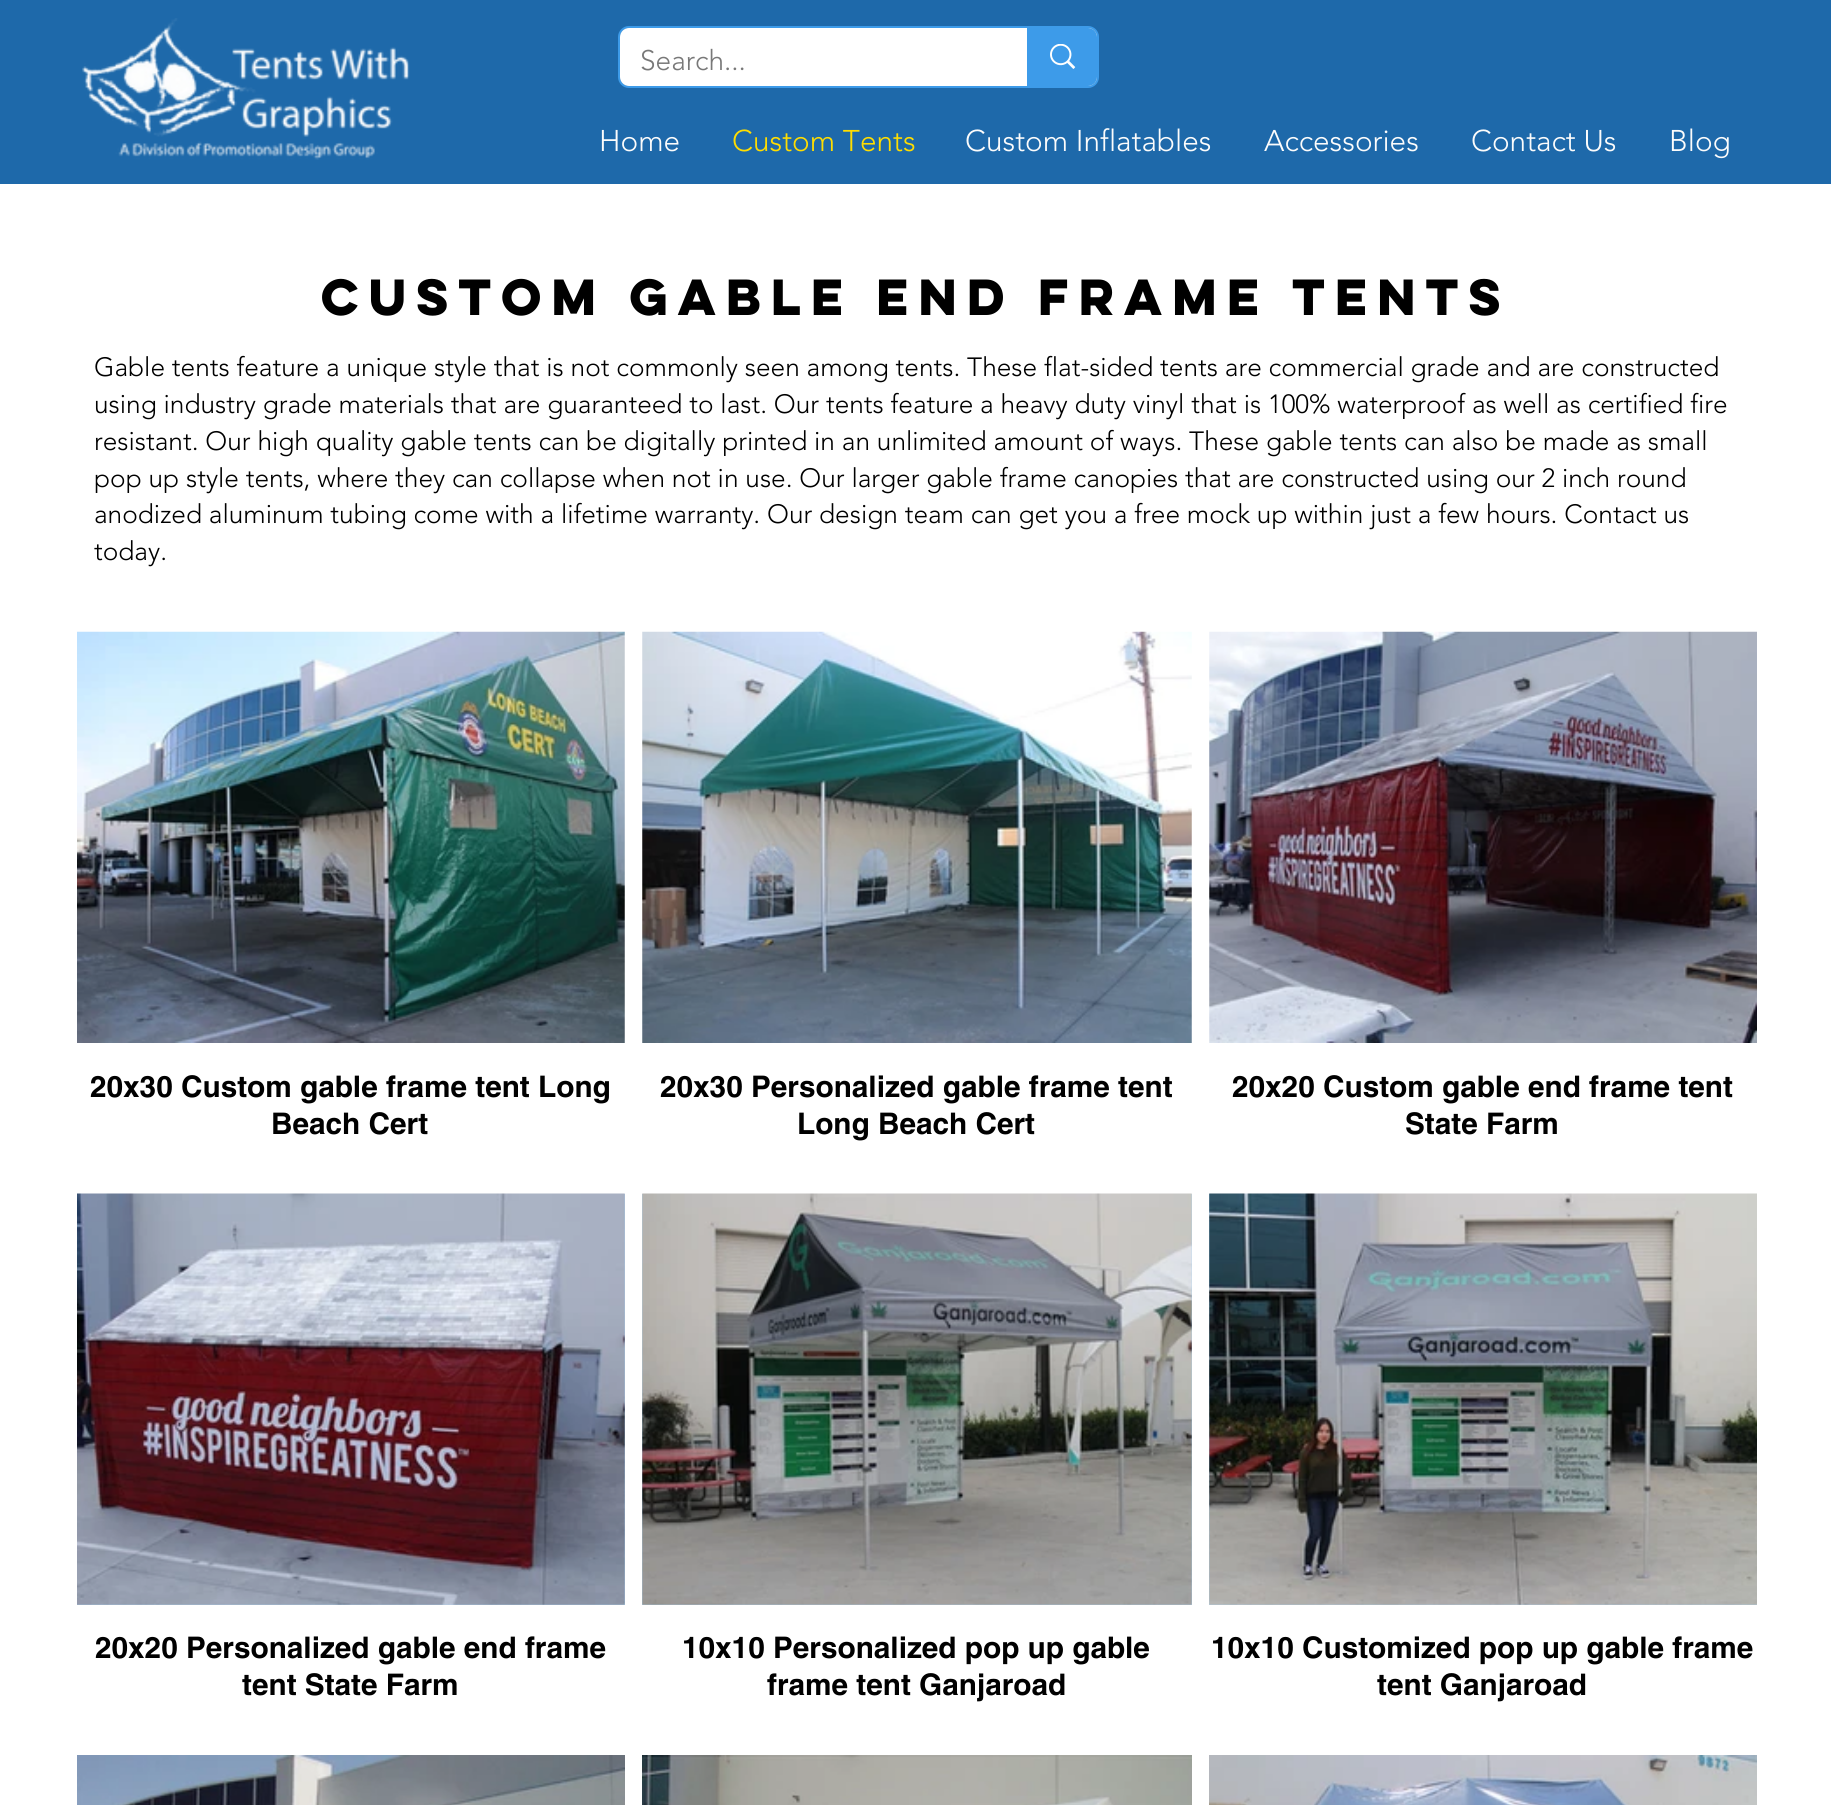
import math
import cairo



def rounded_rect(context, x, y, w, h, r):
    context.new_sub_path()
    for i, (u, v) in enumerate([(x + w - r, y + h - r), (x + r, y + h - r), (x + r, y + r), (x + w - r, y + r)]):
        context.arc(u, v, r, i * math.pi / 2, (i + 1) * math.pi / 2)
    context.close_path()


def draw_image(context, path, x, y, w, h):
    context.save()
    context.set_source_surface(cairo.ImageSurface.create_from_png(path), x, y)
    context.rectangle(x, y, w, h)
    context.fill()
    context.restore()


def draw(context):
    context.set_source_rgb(1, 1, 1)
    context.paint()
    context.set_source_rgb(30 / 255, 105 / 255, 170 / 255)
    context.rectangle(0, 0, 1831, 184)
    context.fill()
    draw_image(context, "images/1.png", 82, 18, 328, 142)
    rounded_rect(context, 619, 27, 479, 60, 10)
    context.set_source_rgb(61 / 255, 155 / 255, 233 / 255)
    context.stroke()
    context.set_source_rgb(1, 1, 1)
    rounded_rect(context, 620, 28, 477, 58, 9)
    context.fill()
    context.set_source_rgb(61 / 255, 155 / 255, 233 / 255)
    context.new_path()
    context.move_to(1027, 28)
    context.line_to(1088, 28)
    context.curve_to(1093, 28, 1097, 32, 1097, 37)
    context.line_to(1097, 77)
    context.curve_to(1097, 82, 1093, 86, 1088, 86)
    context.line_to(1027, 86)
    context.close_path()
    context.fill()
    draw_image(context, "images/2.png", 1050, 44, 26, 25)
    draw_image(context, "images/3.png", 77, 631, 548, 412)
    draw_image(context, "images/4.png", 642, 631, 550, 412)
    draw_image(context, "images/5.png", 1209, 631, 548, 412)
    context.set_source_rgb(170 / 255, 215 / 255, 247 / 255)
    context.rectangle(77, 1194, 548, 411)
    context.fill()
    draw_image(context, "images/6.png", 77, 1193, 548, 412)
    context.rectangle(642, 1194, 550, 411)
    context.fill()
    draw_image(context, "images/7.png", 642, 1193, 550, 412)
    context.rectangle(1209, 1194, 548, 411)
    context.fill()
    draw_image(context, "images/8.png", 1209, 1193, 548, 412)
    draw_image(context, "images/9.png", 77, 1755, 548, 50)
    draw_image(context, "images/10.png", 642, 1755, 550, 50)
    draw_image(context, "images/11.png", 1209, 1755, 548, 50)
    context.select_font_face("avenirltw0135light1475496 Light")
    context.set_font_size(28)
    context.set_source_rgb(120 / 255, 120 / 255, 120 / 255)
    context.move_to(640, 70)
    context.show_text("Search...")
    context.set_font_size(29.75)
    context.set_source_rgb(252 / 255, 252 / 255, 252 / 255)
    context.move_to(599, 151)
    context.show_text("Home")
    context.set_source_rgb(1, 221 / 255, 0)
    context.move_to(732, 151)
    context.show_text("Custom Tents")
    context.set_source_rgb(252 / 255, 252 / 255, 252 / 255)
    context.move_to(965, 151)
    context.show_text("Custom Inflatables")
    context.move_to(1264, 151)
    context.show_text("Accessories")
    context.move_to(1471, 151)
    context.show_text("Contact Us")
    context.move_to(1669, 151)
    context.show_text("Blog")
    context.select_font_face("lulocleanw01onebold", cairo.FontSlant.NORMAL, cairo.FontWeight.BOLD)
    context.set_font_size(45.5)
    context.set_source_rgb(0, 0, 0)
    context.move_to(321, 315)
    context.show_text("Custom Gable End Frame Tents")
    context.select_font_face("avenirltw0135light1475496 Light")
    context.set_font_size(26.25)
    context.move_to(94, 376)
    context.show_text("Gable tents feature a unique style that is not commonly seen among tents. These flat-sided tents are commercial grade and are constructed")
    context.move_to(94, 413)
    context.show_text("using industry grade materials that are guaranteed to last. Our tents feature a heavy duty vinyl that is 100% waterproof as well as certified fire")
    context.move_to(94, 450)
    context.show_text("resistant. Our high quality gable tents can be digitally printed in an unlimited amount of ways. These gable tents can also be made as small")
    context.move_to(94, 487)
    context.show_text("pop up style tents, where they can collapse when not in use. Our larger gable frame canopies that are constructed using our 2 inch round")
    context.move_to(94, 523)
    context.show_text("anodized aluminum tubing come with a lifetime warranty. Our design team can get you a free mock up within just a few hours. Contact us")
    context.move_to(94, 560)
    context.show_text("today.")
    context.select_font_face("helvetica", cairo.FontSlant.NORMAL, cairo.FontWeight.BOLD)
    context.set_font_size(29.75)
    context.move_to(90, 1097)
    context.show_text("20x30 Custom gable frame tent Long")
    context.move_to(271, 1134)
    context.show_text("Beach Cert")
    context.move_to(660, 1097)
    context.show_text("20x30 Personalized gable frame tent")
    context.move_to(797, 1134)
    context.show_text("Long Beach Cert")
    context.move_to(1232, 1097)
    context.show_text("20x20 Custom gable end frame tent")
    context.move_to(1405, 1134)
    context.show_text("State Farm")
    context.move_to(95, 1658)
    context.show_text("20x20 Personalized gable end frame")
    context.move_to(242, 1695)
    context.show_text("tent State Farm")
    context.move_to(682, 1658)
    context.show_text("10x10 Personalized pop up gable")
    context.move_to(767, 1695)
    context.show_text("frame tent Ganjaroad")
    context.move_to(1211, 1658)
    context.show_text("10x10 Customized pop up gable frame")
    context.move_to(1377, 1695)
    context.show_text("tent Ganjaroad")


surface = cairo.ImageSurface(cairo.Format.RGB24, 1831, 1805)
context = cairo.Context(surface)
options = cairo.FontOptions()
options.set_hint_metrics(cairo.HintMetrics.OFF)
options.set_hint_style(cairo.HintStyle.NONE)
context.set_font_options(options)
context.set_miter_limit(4)
draw(context)
surface.write_to_png("out.png")
